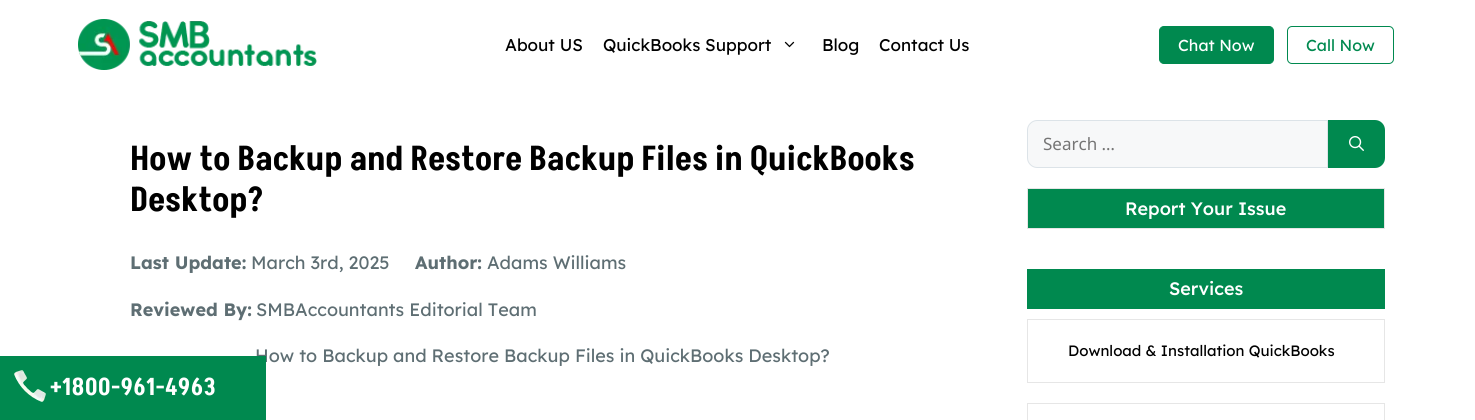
import math
import cairo



def rounded_rect(context, x, y, w, h, r):
    context.new_sub_path()
    for i, (u, v) in enumerate([(x + w - r, y + h - r), (x + r, y + h - r), (x + r, y + r), (x + w - r, y + r)]):
        context.arc(u, v, r, i * math.pi / 2, (i + 1) * math.pi / 2)
    context.close_path()


def draw_image(context, path, x, y, w, h):
    context.save()
    context.set_source_surface(cairo.ImageSurface.create_from_png(path), x, y)
    context.rectangle(x, y, w, h)
    context.fill()
    context.restore()


def draw(context):
    context.set_source_rgb(1, 1, 1)
    context.paint()
    draw_image(context, "images/1.png", 78, 19, 239, 51)
    draw_image(context, "images/2.png", 784, 41, 11, 7)
    context.set_source_rgb(0, 137 / 255, 79 / 255)
    rounded_rect(context, 1159.5, 26.5, 114, 37, 4.5)
    context.fill_preserve()
    context.set_line_width(1)
    context.stroke()
    rounded_rect(context, 1287.5, 26.5, 106, 37, 4.5)
    context.stroke()
    context.set_source_rgb(247 / 255, 248 / 255, 249 / 255)
    context.new_path()
    context.move_to(1037, 120.5)
    context.line_to(1327.5, 120.5)
    context.line_to(1327.5, 167.5)
    context.line_to(1037, 167.5)
    context.curve_to(1032, 167.5, 1027.5, 163, 1027.5, 158)
    context.line_to(1027.5, 130)
    context.curve_to(1027.5, 125, 1032, 120.5, 1037, 120.5)
    context.close_path()
    context.fill_preserve()
    context.set_source_rgb(220 / 255, 227 / 255, 232 / 255)
    context.stroke()
    context.set_source_rgb(0, 137 / 255, 79 / 255)
    context.new_path()
    context.move_to(1328, 120)
    context.line_to(1375, 120)
    context.curve_to(1380.5, 120, 1385, 124.5, 1385, 130)
    context.line_to(1385, 158)
    context.curve_to(1385, 163.5, 1380.5, 168, 1375, 168)
    context.line_to(1328, 168)
    context.close_path()
    context.fill()
    draw_image(context, "images/3.png", 1349, 136, 15, 15)
    context.rectangle(1027.5, 188.5, 357, 40)
    context.set_source_rgb(230 / 255, 230 / 255, 230 / 255)
    context.stroke()
    context.set_source_rgb(0, 137 / 255, 79 / 255)
    context.rectangle(1028, 189, 356, 39)
    context.fill()
    context.rectangle(1027, 269, 358, 40)
    context.fill()
    context.rectangle(1027.5, 319.5, 357, 63)
    context.set_source_rgb(230 / 255, 230 / 255, 230 / 255)
    context.stroke()
    context.rectangle(1027.5, 403.5, 357, 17)
    context.stroke()
    context.select_font_face("Lexend Deca")
    context.set_font_size(17)
    context.set_source_rgb(0, 0, 0)
    context.move_to(505, 51)
    context.show_text("About US")
    context.move_to(603, 51)
    context.show_text("QuickBooks Support")
    context.move_to(822, 51)
    context.show_text("Blog")
    context.move_to(879, 51)
    context.show_text("Contact Us")
    context.set_font_size(16)
    context.set_source_rgb(1, 1, 1)
    context.move_to(1178, 51)
    context.show_text("Chat Now")
    context.set_source_rgb(0, 137 / 255, 79 / 255)
    context.move_to(1306, 51)
    context.show_text("Call Now")
    context.select_font_face("Akshar SemiBold")
    context.set_font_size(34)
    context.set_source_rgb(0, 0, 0)
    context.move_to(130, 170)
    context.show_text("How to Backup and Restore Backup Files in QuickBooks")
    context.move_to(130, 211)
    context.show_text("Desktop?")
    context.select_font_face("Lexend Deca", cairo.FontSlant.NORMAL, cairo.FontWeight.BOLD)
    context.set_font_size(18)
    context.set_source_rgb(94 / 255, 110 / 255, 115 / 255)
    context.move_to(130, 269)
    context.show_text("Last Update:")
    context.select_font_face("Lexend Deca")
    context.move_to(251, 269)
    context.show_text("March 3rd, 2025")
    context.select_font_face("Lexend Deca", cairo.FontSlant.NORMAL, cairo.FontWeight.BOLD)
    context.move_to(415, 269)
    context.show_text("Author:")
    context.select_font_face("Lexend Deca")
    context.move_to(487, 269)
    context.show_text("Adams Williams")
    context.select_font_face("Lexend Deca", cairo.FontSlant.NORMAL, cairo.FontWeight.BOLD)
    context.move_to(130, 316)
    context.show_text("Reviewed By:")
    context.select_font_face("Lexend Deca")
    context.move_to(256, 316)
    context.show_text("SMBAccountants Editorial Team")
    context.move_to(255, 362)
    context.show_text("How to Backup and Restore Backup Files in QuickBooks Desktop?")
    context.select_font_face("Noto Sans")
    context.set_font_size(17)
    context.set_source_rgb(117 / 255, 117 / 255, 117 / 255)
    context.move_to(1043, 150)
    context.show_text("Search …")
    context.select_font_face("Lexend Deca Medium")
    context.set_font_size(18)
    context.set_source_rgb(1, 1, 1)
    context.move_to(1125, 215)
    context.show_text("Report Your Issue")
    context.move_to(1169, 295)
    context.show_text("Services")
    context.select_font_face("Lexend Deca")
    context.set_font_size(15)
    context.set_source_rgb(0, 0, 0)
    context.move_to(1068, 356)
    context.show_text("Download & Installation QuickBooks")
    context.set_source_rgb(0, 137 / 255, 79 / 255)
    context.rectangle(0, 356, 266, 64)
    context.fill()
    draw_image(context, "images/4.png", 14, 370, 32, 32)
    context.select_font_face("Akshar SemiBold")
    context.set_font_size(24)
    context.set_source_rgb(1, 1, 1)
    context.move_to(50, 395)
    context.show_text("+1800-961-4963")


surface = cairo.ImageSurface(cairo.Format.RGB24, 1475, 420)
context = cairo.Context(surface)
options = cairo.FontOptions()
options.set_hint_metrics(cairo.HintMetrics.OFF)
options.set_hint_style(cairo.HintStyle.NONE)
context.set_font_options(options)
context.set_miter_limit(4)
draw(context)
surface.write_to_png("out.png")
